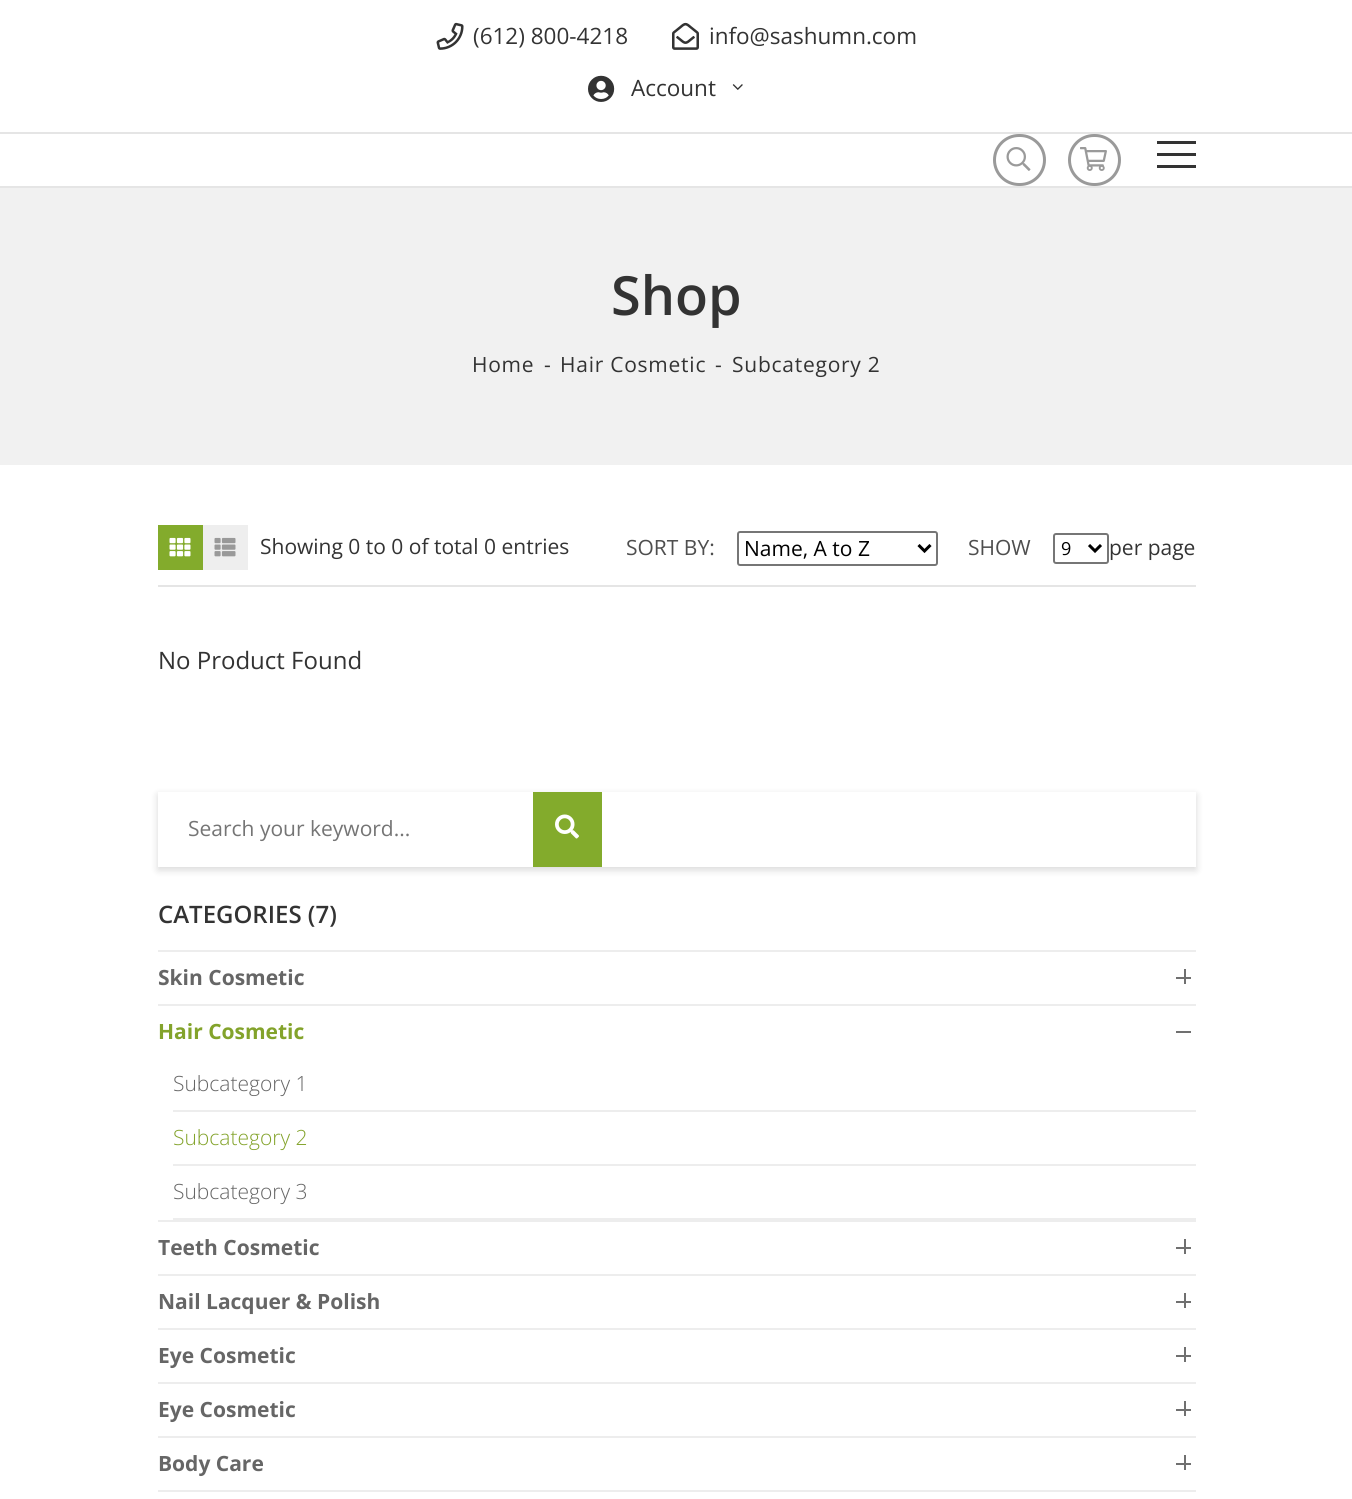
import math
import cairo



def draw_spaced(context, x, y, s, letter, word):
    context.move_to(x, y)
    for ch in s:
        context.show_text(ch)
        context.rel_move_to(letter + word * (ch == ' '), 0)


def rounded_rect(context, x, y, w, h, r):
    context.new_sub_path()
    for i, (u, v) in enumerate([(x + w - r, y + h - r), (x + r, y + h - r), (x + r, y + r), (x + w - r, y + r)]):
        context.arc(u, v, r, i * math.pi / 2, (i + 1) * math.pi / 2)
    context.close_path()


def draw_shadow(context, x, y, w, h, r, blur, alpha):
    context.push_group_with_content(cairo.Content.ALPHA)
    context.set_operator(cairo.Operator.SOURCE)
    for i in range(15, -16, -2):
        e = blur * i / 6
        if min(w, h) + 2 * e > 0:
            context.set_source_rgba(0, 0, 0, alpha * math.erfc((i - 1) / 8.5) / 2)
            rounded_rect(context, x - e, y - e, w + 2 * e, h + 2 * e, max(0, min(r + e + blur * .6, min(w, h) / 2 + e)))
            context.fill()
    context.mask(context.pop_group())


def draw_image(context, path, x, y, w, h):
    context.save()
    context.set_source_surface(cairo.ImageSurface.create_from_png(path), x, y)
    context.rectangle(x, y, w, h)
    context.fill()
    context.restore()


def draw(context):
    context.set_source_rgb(1, 1, 1)
    context.paint()
    context.set_source_rgb(229 / 255, 229 / 255, 229 / 255)
    context.rectangle(0, 132, 1352, 2)
    context.fill()
    draw_image(context, "images/1.png", 436, 22, 28, 28)
    draw_image(context, "images/2.png", 672, 22, 27, 28)
    draw_image(context, "images/3.png", 588, 75, 27, 27)
    draw_image(context, "images/4.png", 732, 84, 11, 6)
    context.rectangle(0, 186, 1352, 2)
    context.fill()
    rounded_rect(context, 994.5, 135.5, 50, 49, 24.5)
    context.set_source_rgb(154 / 255, 154 / 255, 154 / 255)
    context.set_line_width(3)
    context.stroke()
    draw_image(context, "images/5.png", 1006, 147, 25, 24)
    rounded_rect(context, 1069.5, 135.5, 50, 49, 24.5)
    context.stroke()
    draw_image(context, "images/6.png", 1080, 147, 27, 24)
    context.set_source_rgb(51 / 255, 51 / 255, 51 / 255)
    context.rectangle(1157, 153, 39, 3)
    context.fill()
    context.rectangle(1157, 141, 39, 3)
    context.fill()
    context.rectangle(1157, 165, 39, 3)
    context.fill()
    context.set_source_rgb(241 / 255, 241 / 255, 241 / 255)
    context.rectangle(0, 188, 1352, 277)
    context.fill()
    context.set_source_rgb(229 / 255, 229 / 255, 229 / 255)
    context.rectangle(158, 585, 1038, 2)
    context.fill()
    context.set_source_rgb(131 / 255, 171 / 255, 44 / 255)
    context.rectangle(158, 525, 45, 45)
    context.fill()
    draw_image(context, "images/7.png", 169, 537, 22, 20)
    context.set_source_rgb(238 / 255, 238 / 255, 238 / 255)
    context.rectangle(203, 525, 45, 45)
    context.fill()
    draw_image(context, "images/8.png", 214, 537, 22, 20)
    rounded_rect(context, 738, 532, 199, 33, 2)
    context.set_source_rgb(118 / 255, 118 / 255, 118 / 255)
    context.set_line_width(2)
    context.stroke()
    context.new_path()
    context.move_to(918.5, 545)
    context.line_to(924.5, 551)
    context.line_to(930.5, 545)
    context.set_source_rgb(0, 0, 0)
    context.set_line_width(3)
    context.stroke()
    rounded_rect(context, 1054, 534, 54, 29, 2)
    context.set_source_rgb(118 / 255, 118 / 255, 118 / 255)
    context.set_line_width(2)
    context.stroke()
    context.new_path()
    context.move_to(1089, 545)
    context.line_to(1095, 551)
    context.line_to(1101, 545)
    context.set_source_rgb(0, 0, 0)
    context.set_line_width(3)
    context.stroke()
    context.set_source_rgb(0, 0, 0)
    draw_shadow(context, 158, 795, 1038, 75, 0, 4, 0.15)
    context.set_source_rgb(1, 1, 1)
    context.rectangle(158, 792, 1038, 75)
    context.fill()
    context.set_source_rgb(131 / 255, 171 / 255, 44 / 255)
    context.rectangle(533, 792, 69, 75)
    context.fill()
    draw_image(context, "images/9.png", 555, 814, 24, 25)
    context.set_source_rgb(237 / 255, 237 / 255, 237 / 255)
    context.rectangle(158, 950, 1038, 2)
    context.fill()
    context.rectangle(158, 1004, 1038, 2)
    context.fill()
    context.set_source_rgb(112 / 255, 112 / 255, 112 / 255)
    context.rectangle(1176, 977, 15, 2)
    context.fill()
    context.rectangle(1184, 969, 2, 15)
    context.fill()
    context.set_source_rgb(237 / 255, 237 / 255, 237 / 255)
    context.rectangle(158, 1220, 1038, 2)
    context.fill()
    context.set_source_rgb(112 / 255, 112 / 255, 112 / 255)
    context.rectangle(1176, 1031, 15, 2)
    context.fill()
    context.set_source_rgb(237 / 255, 237 / 255, 237 / 255)
    context.rectangle(173, 1110, 1023, 2)
    context.fill()
    context.rectangle(173, 1164, 1023, 2)
    context.fill()
    context.rectangle(173, 1218, 1023, 2)
    context.fill()
    context.rectangle(158, 1274, 1038, 2)
    context.fill()
    context.set_source_rgb(112 / 255, 112 / 255, 112 / 255)
    context.rectangle(1176, 1247, 15, 2)
    context.fill()
    context.rectangle(1184, 1239, 2, 15)
    context.fill()
    context.set_source_rgb(237 / 255, 237 / 255, 237 / 255)
    context.rectangle(158, 1328, 1038, 2)
    context.fill()
    context.set_source_rgb(112 / 255, 112 / 255, 112 / 255)
    context.rectangle(1176, 1301, 15, 2)
    context.fill()
    context.rectangle(1184, 1293, 2, 15)
    context.fill()
    context.set_source_rgb(237 / 255, 237 / 255, 237 / 255)
    context.rectangle(158, 1382, 1038, 2)
    context.fill()
    context.set_source_rgb(112 / 255, 112 / 255, 112 / 255)
    context.rectangle(1176, 1355, 15, 2)
    context.fill()
    context.rectangle(1184, 1347, 2, 15)
    context.fill()
    context.set_source_rgb(237 / 255, 237 / 255, 237 / 255)
    context.rectangle(158, 1436, 1038, 2)
    context.fill()
    context.set_source_rgb(112 / 255, 112 / 255, 112 / 255)
    context.rectangle(1176, 1409, 15, 2)
    context.fill()
    context.rectangle(1184, 1401, 2, 15)
    context.fill()
    context.set_source_rgb(237 / 255, 237 / 255, 237 / 255)
    context.rectangle(158, 1490, 1038, 2)
    context.fill()
    context.set_source_rgb(112 / 255, 112 / 255, 112 / 255)
    context.rectangle(1176, 1463, 15, 2)
    context.fill()
    context.rectangle(1184, 1455, 2, 15)
    context.fill()
    context.select_font_face("Open Sans")
    context.set_font_size(22.5)
    context.set_source_rgb(51 / 255, 51 / 255, 51 / 255)
    context.move_to(473, 44)
    context.show_text("(612) 800-4218")
    context.move_to(709, 44)
    context.show_text("info@sashumn.com")
    context.move_to(631, 96)
    context.show_text("Account")
    context.select_font_face("Open Sans SemiBold")
    context.set_font_size(54)
    context.move_to(611, 315)
    context.show_text("Shop")
    context.select_font_face("Open Sans")
    context.set_font_size(21)
    draw_spaced(context, 472, 372, "Home", 0.75, 0)
    draw_spaced(context, 544, 372, "-", 0.75, 0)
    draw_spaced(context, 560, 372, "Hair Cosmetic", 0.75, 0)
    draw_spaced(context, 715, 372, "-", 0.75, 0)
    draw_spaced(context, 732, 372, "Subcategory 2", 0.75, 0)
    context.move_to(260, 554)
    context.show_text("Showing 0 to 0 of total 0 entries")
    context.set_source_rgb(78 / 255, 78 / 255, 78 / 255)
    context.move_to(626, 555)
    context.show_text("SORT BY:")
    context.set_source_rgb(0, 0, 0)
    context.move_to(744, 556)
    context.show_text("Name, A to Z")
    context.set_source_rgb(78 / 255, 78 / 255, 78 / 255)
    context.move_to(968, 555)
    context.show_text("SHOW")
    context.set_font_size(18)
    context.set_source_rgb(0, 0, 0)
    context.move_to(1061, 555)
    context.show_text("9")
    context.set_font_size(21)
    context.set_source_rgb(51 / 255, 51 / 255, 51 / 255)
    context.move_to(1109, 555)
    context.show_text("per page")
    context.set_font_size(24)
    context.move_to(158, 669)
    context.show_text("No Product Found")
    context.set_font_size(21)
    context.set_source_rgb(117 / 255, 117 / 255, 117 / 255)
    context.move_to(188, 836)
    context.show_text("Search your keyword...")
    context.select_font_face("Open Sans SemiBold")
    context.set_font_size(24)
    context.set_source_rgb(51 / 255, 51 / 255, 51 / 255)
    context.move_to(158, 923)
    context.show_text("CATEGORIES (7)")
    context.select_font_face("Open Sans", cairo.FontSlant.NORMAL, cairo.FontWeight.BOLD)
    context.set_font_size(21)
    context.set_source_rgb(102 / 255, 102 / 255, 102 / 255)
    context.move_to(158, 985)
    context.show_text("Skin Cosmetic")
    context.set_source_rgb(131 / 255, 163 / 255, 43 / 255)
    context.move_to(158, 1039)
    context.show_text("Hair Cosmetic")
    context.select_font_face("Open Sans Light")
    context.set_source_rgb(102 / 255, 102 / 255, 102 / 255)
    context.move_to(173, 1091)
    context.show_text("Subcategory 1")
    context.set_source_rgb(131 / 255, 163 / 255, 43 / 255)
    context.move_to(173, 1145)
    context.show_text("Subcategory 2")
    context.set_source_rgb(102 / 255, 102 / 255, 102 / 255)
    context.move_to(173, 1199)
    context.show_text("Subcategory 3")
    context.select_font_face("Open Sans", cairo.FontSlant.NORMAL, cairo.FontWeight.BOLD)
    context.move_to(158, 1255)
    context.show_text("Teeth Cosmetic")
    context.move_to(158, 1309)
    context.show_text("Nail Lacquer & Polish")
    context.move_to(158, 1363)
    context.show_text("Eye Cosmetic")
    context.move_to(158, 1417)
    context.show_text("Eye Cosmetic")
    context.move_to(158, 1471)
    context.show_text("Body Care")


surface = cairo.ImageSurface(cairo.Format.RGB24, 1352, 1499)
context = cairo.Context(surface)
options = cairo.FontOptions()
options.set_hint_metrics(cairo.HintMetrics.OFF)
options.set_hint_style(cairo.HintStyle.NONE)
context.set_font_options(options)
context.set_miter_limit(4)
draw(context)
surface.write_to_png("out.png")
